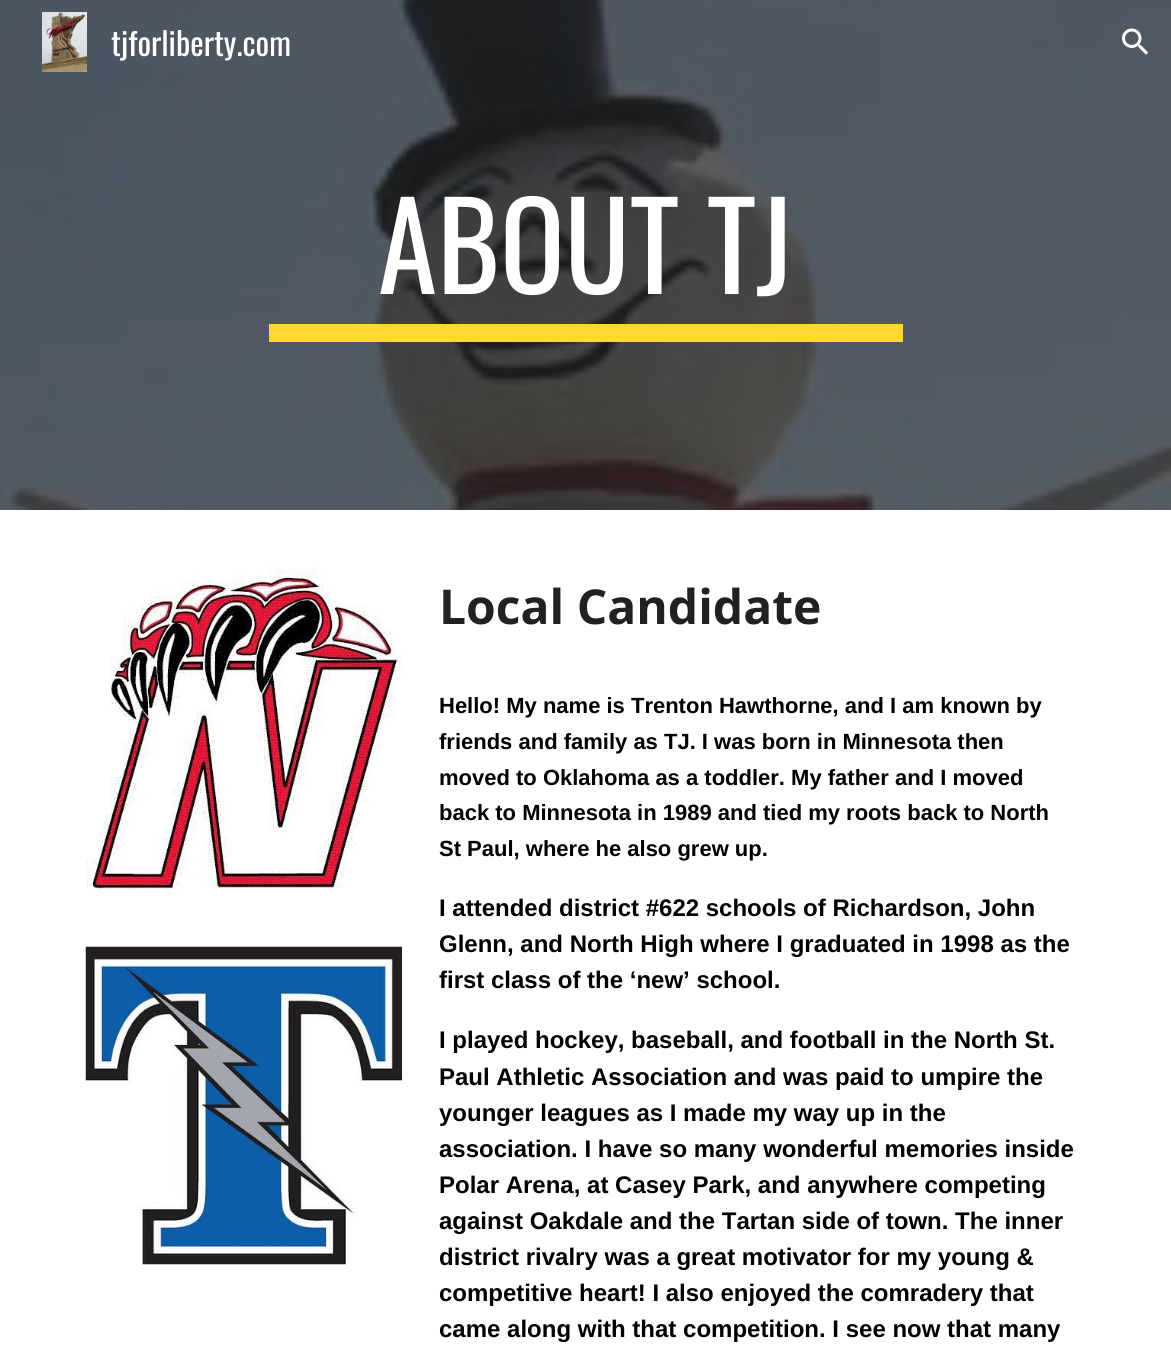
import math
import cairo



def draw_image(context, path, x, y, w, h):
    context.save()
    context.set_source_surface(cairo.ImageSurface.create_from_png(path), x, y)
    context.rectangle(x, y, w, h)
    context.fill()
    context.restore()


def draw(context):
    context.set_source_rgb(1, 1, 1)
    context.paint()
    draw_image(context, "images/3.png", 0, 0, 1171, 510)
    draw_image(context, "images/1.png", 42, 12, 45, 60)
    draw_image(context, "images/2.png", 1122, 28, 27, 27)
    context.set_source_rgb(253 / 255, 216 / 255, 53 / 255)
    context.rectangle(269, 324, 634, 18)
    context.fill()
    draw_image(context, "images/4.png", 86, 567, 316, 327)
    draw_image(context, "images/5.png", 85, 946, 317, 319)
    context.select_font_face("Oswald")
    context.set_font_size(32)
    context.set_source_rgb(1, 1, 1)
    context.move_to(111, 56)
    context.show_text("tjforliberty.com")
    context.set_font_size(120)
    context.move_to(378, 294)
    context.show_text("ABOUT TJ")
    context.select_font_face("Open Sans", cairo.FontSlant.NORMAL, cairo.FontWeight.BOLD)
    context.set_font_size(48)
    context.set_source_rgb(33 / 255, 33 / 255, 33 / 255)
    context.move_to(439, 624)
    context.show_text("Local Candidate")
    context.select_font_face("Liberation Sans", cairo.FontSlant.NORMAL, cairo.FontWeight.BOLD)
    context.set_font_size(22)
    context.set_source_rgb(0, 0, 0)
    context.move_to(439, 713)
    context.show_text("Hello! My name is Trenton Hawthorne, and I am known by")
    context.move_to(439, 749)
    context.show_text("friends and family as TJ. I was born in Minnesota then")
    context.move_to(439, 785)
    context.show_text("moved to Oklahoma as a toddler. My father and I moved")
    context.move_to(439, 820)
    context.show_text("back to Minnesota in 1989 and tied my roots back to North")
    context.move_to(439, 856)
    context.show_text("St Paul, where he also grew up.")
    context.set_font_size(24)
    context.move_to(439, 916)
    context.show_text("I attended district #622 schools of Richardson, John")
    context.move_to(439, 952)
    context.show_text("Glenn, and North High where I graduated in 1998 as the")
    context.move_to(439, 988)
    context.show_text("first class of the ‘new’ school.")
    context.move_to(439, 1048)
    context.show_text("I played hockey, baseball, and football in the North St.")
    context.move_to(439, 1085)
    context.show_text("Paul Athletic Association and was paid to umpire the")
    context.move_to(439, 1121)
    context.show_text("younger leagues as I made my way up in the")
    context.move_to(439, 1157)
    context.show_text("association. I have so many wonderful memories inside")
    context.move_to(439, 1193)
    context.show_text("Polar Arena, at Casey Park, and anywhere competing")
    context.move_to(439, 1229)
    context.show_text("against Oakdale and the Tartan side of town. The inner")
    context.move_to(439, 1265)
    context.show_text("district rivalry was a great motivator for my young &")
    context.move_to(439, 1301)
    context.show_text("competitive heart! I also enjoyed the comradery that")
    context.move_to(439, 1337)
    context.show_text("came along with that competition. I see now that many")


surface = cairo.ImageSurface(cairo.Format.RGB24, 1171, 1362)
context = cairo.Context(surface)
options = cairo.FontOptions()
options.set_hint_metrics(cairo.HintMetrics.OFF)
options.set_hint_style(cairo.HintStyle.NONE)
context.set_font_options(options)
context.set_miter_limit(4)
draw(context)
surface.write_to_png("out.png")
